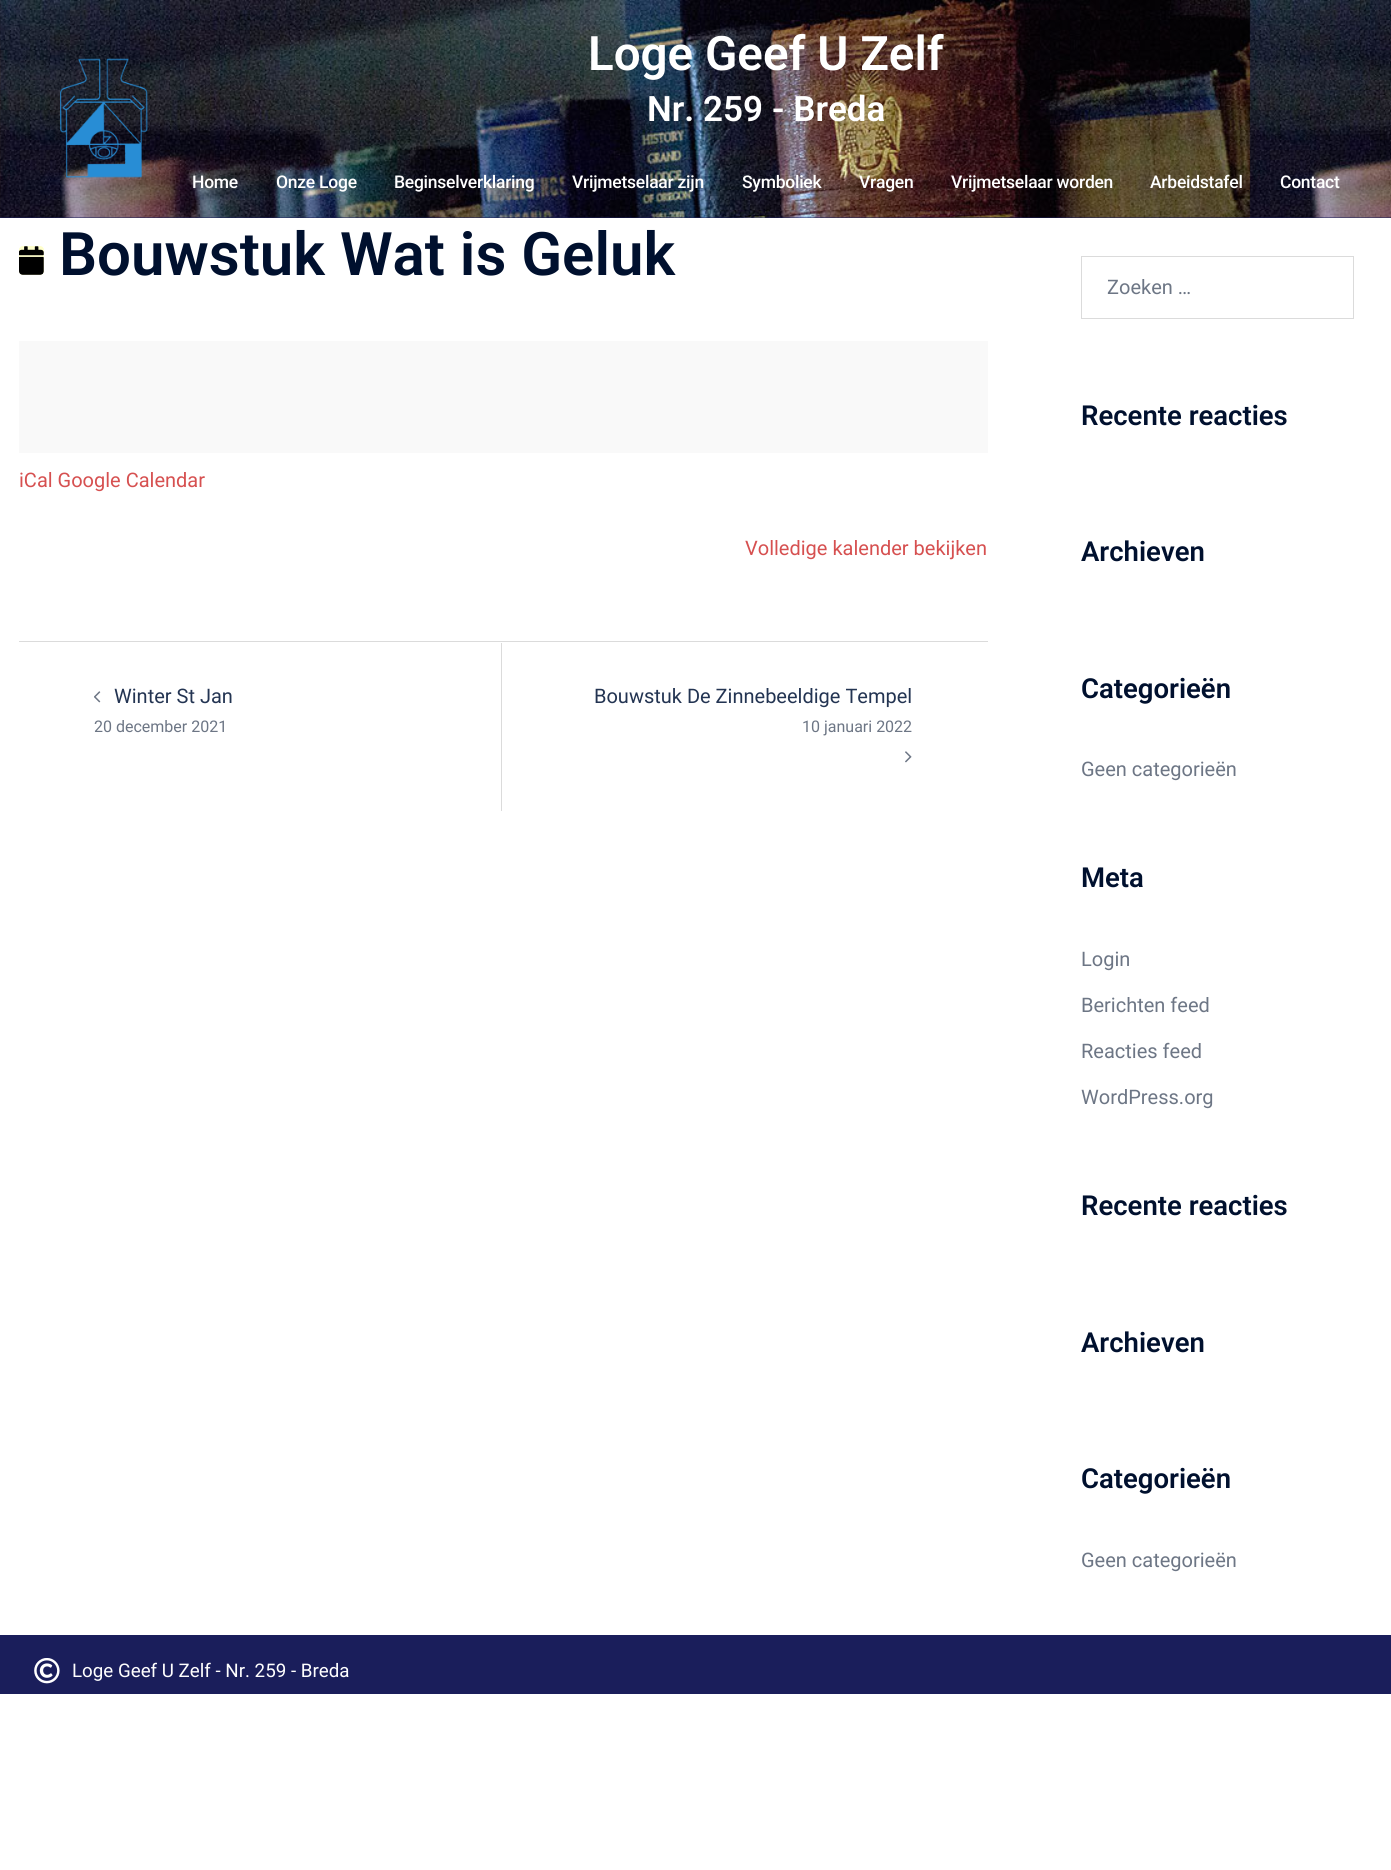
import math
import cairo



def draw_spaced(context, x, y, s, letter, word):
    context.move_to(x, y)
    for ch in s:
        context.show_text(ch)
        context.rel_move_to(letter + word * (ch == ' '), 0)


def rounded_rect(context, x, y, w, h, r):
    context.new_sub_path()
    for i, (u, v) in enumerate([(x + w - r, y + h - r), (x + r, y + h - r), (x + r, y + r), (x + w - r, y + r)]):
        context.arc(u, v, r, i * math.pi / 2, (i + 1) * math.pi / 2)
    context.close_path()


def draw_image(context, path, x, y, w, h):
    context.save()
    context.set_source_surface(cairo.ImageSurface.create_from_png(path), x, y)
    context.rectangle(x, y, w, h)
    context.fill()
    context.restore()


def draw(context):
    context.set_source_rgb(1, 1, 1)
    context.paint()
    context.set_source_rgb(26 / 255, 30 / 255, 91 / 255)
    context.rectangle(0, 217, 1391, 1)
    context.fill()
    draw_image(context, "images/1.png", 0, 0, 1391, 218)
    draw_image(context, "images/2.png", 60, 58, 88, 120)
    context.set_source_rgb(1, 1, 204 / 255)
    rounded_rect(context, 19, 246, 25, 29, 4)
    context.fill()
    draw_image(context, "images/3.png", 19, 246, 25, 29)
    context.set_source_rgb(249 / 255, 249 / 255, 249 / 255)
    context.rectangle(19, 341, 969, 112)
    context.fill()
    context.set_source_rgb(219 / 255, 219 / 255, 219 / 255)
    context.rectangle(19, 641, 969, 1)
    context.fill()
    context.rectangle(501, 643, 1, 168)
    context.fill()
    draw_image(context, "images/4.png", 94, 691, 7, 12)
    draw_image(context, "images/5.png", 905, 751, 7, 12)
    context.rectangle(1081.5, 256.5, 272, 62)
    context.set_line_width(1)
    context.stroke()
    context.set_source_rgb(26 / 255, 30 / 255, 91 / 255)
    context.rectangle(0, 1635, 1391, 59)
    context.fill()
    draw_image(context, "images/6.png", 34, 1658, 26, 26)
    context.select_font_face("Roboto SemiBold")
    context.set_font_size(47.5)
    context.set_source_rgb(1, 1, 1)
    context.move_to(588, 70)
    context.show_text("Loge Geef U Zelf")
    context.set_font_size(35)
    context.move_to(647, 121)
    context.show_text("Nr. 259 - Breda")
    context.select_font_face("Roboto Medium")
    context.set_font_size(17.5)
    draw_spaced(context, 192, 188, "Home", -0.25, 0)
    draw_spaced(context, 276, 188, "Onze Loge", -0.25, 0)
    draw_spaced(context, 394, 188, "Beginselverklaring", -0.25, 0)
    draw_spaced(context, 572, 188, "Vrijmetselaar zijn", -0.25, 0)
    draw_spaced(context, 742, 188, "Symboliek", -0.25, 0)
    draw_spaced(context, 859, 188, "Vragen", -0.25, 0)
    draw_spaced(context, 951, 188, "Vrijmetselaar worden", -0.25, 0)
    draw_spaced(context, 1150, 188, "Arbeidstafel", -0.25, 0)
    draw_spaced(context, 1280, 188, "Contact", -0.25, 0)
    context.select_font_face("Roboto SemiBold")
    context.set_font_size(60)
    context.set_source_rgb(0, 16 / 255, 46 / 255)
    context.move_to(59, 275)
    context.show_text("Bouwstuk Wat is Geluk")
    context.select_font_face("Roboto")
    context.set_font_size(20)
    context.set_source_rgb(214 / 255, 80 / 255, 80 / 255)
    context.move_to(19, 487)
    context.show_text("iCal Google Calendar")
    context.move_to(745, 555)
    context.show_text("Volledige kalender bekijken")
    context.set_source_rgb(35 / 255, 52 / 255, 82 / 255)
    context.move_to(114, 703)
    context.show_text("Winter St Jan")
    context.set_font_size(16)
    context.set_source_rgb(109 / 255, 118 / 255, 133 / 255)
    context.move_to(94, 732)
    context.show_text("20 december 2021")
    context.set_font_size(20)
    context.set_source_rgb(35 / 255, 52 / 255, 82 / 255)
    context.move_to(594, 703)
    context.show_text("Bouwstuk De Zinnebeeldige Tempel")
    context.set_font_size(16)
    context.set_source_rgb(109 / 255, 118 / 255, 133 / 255)
    context.move_to(802, 732)
    context.show_text("10 januari 2022")
    context.set_font_size(20)
    context.move_to(1107, 294)
    context.show_text("Zoeken …")
    context.select_font_face("Roboto SemiBold")
    context.set_font_size(27.5)
    context.set_source_rgb(0, 16 / 255, 46 / 255)
    context.move_to(1081, 425)
    context.show_text("Recente reacties")
    context.move_to(1081, 561)
    context.show_text("Archieven")
    context.move_to(1081, 698)
    context.show_text("Categorieën")
    context.select_font_face("Roboto")
    context.set_font_size(20)
    context.set_source_rgb(109 / 255, 118 / 255, 133 / 255)
    context.move_to(1081, 776)
    context.show_text("Geen categorieën")
    context.select_font_face("Roboto SemiBold")
    context.set_font_size(27.5)
    context.set_source_rgb(0, 16 / 255, 46 / 255)
    context.move_to(1081, 887)
    context.show_text("Meta")
    context.select_font_face("Roboto")
    context.set_font_size(20)
    context.set_source_rgb(109 / 255, 118 / 255, 133 / 255)
    context.move_to(1081, 966)
    context.show_text("Login")
    context.move_to(1081, 1012)
    context.show_text("Berichten feed")
    context.move_to(1081, 1058)
    context.show_text("Reacties feed")
    context.move_to(1081, 1104)
    context.show_text("WordPress.org")
    context.select_font_face("Roboto SemiBold")
    context.set_font_size(27.5)
    context.set_source_rgb(0, 16 / 255, 46 / 255)
    context.move_to(1081, 1215)
    context.show_text("Recente reacties")
    context.move_to(1081, 1352)
    context.show_text("Archieven")
    context.move_to(1081, 1488)
    context.show_text("Categorieën")
    context.select_font_face("Roboto")
    context.set_font_size(20)
    context.set_source_rgb(109 / 255, 118 / 255, 133 / 255)
    context.move_to(1081, 1567)
    context.show_text("Geen categorieën")
    context.set_font_size(18.75)
    context.set_source_rgb(1, 1, 1)
    context.move_to(72, 1677)
    context.show_text("Loge Geef U Zelf - Nr. 259 - Breda")


surface = cairo.ImageSurface(cairo.Format.RGB24, 1391, 1870)
context = cairo.Context(surface)
options = cairo.FontOptions()
options.set_hint_metrics(cairo.HintMetrics.OFF)
options.set_hint_style(cairo.HintStyle.NONE)
context.set_font_options(options)
context.set_miter_limit(4)
draw(context)
surface.write_to_png("out.png")
